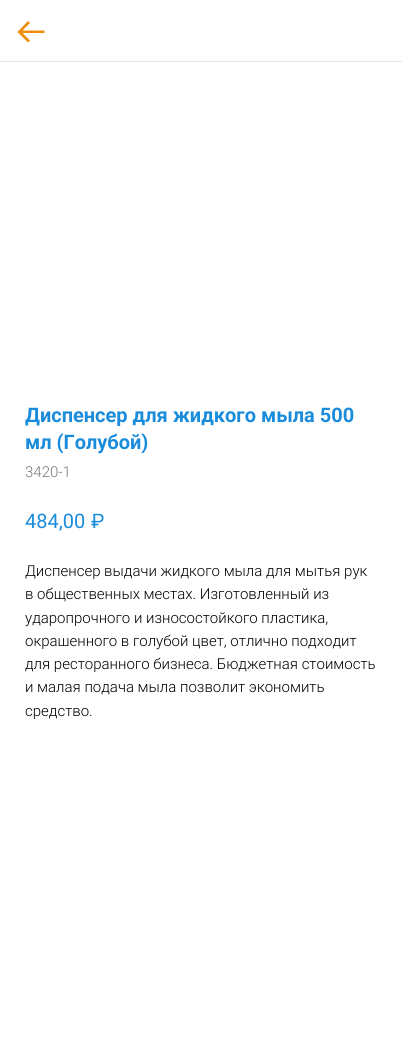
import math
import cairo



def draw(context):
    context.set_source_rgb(1, 1, 1)
    context.paint()
    context.set_source_rgb(230 / 255, 230 / 255, 230 / 255)
    context.rectangle(0, 61, 402, 1)
    context.fill()
    context.set_source_rgb(239 / 255, 142 / 255, 12 / 255)
    context.new_path()
    context.move_to(28, 21)
    context.line_to(30, 23)
    context.line_to(22.5, 30.5)
    context.line_to(44.5, 30.5)
    context.line_to(44.5, 33)
    context.line_to(22.5, 33)
    context.line_to(30, 40.5)
    context.line_to(28, 42.5)
    context.line_to(17.5, 32)
    context.close_path()
    context.fill()
    context.select_font_face("Roboto", cairo.FontSlant.NORMAL, cairo.FontWeight.BOLD)
    context.set_font_size(20)
    context.set_source_rgb(26 / 255, 140 / 255, 220 / 255)
    context.move_to(25, 422)
    context.show_text("Диспенсер для жидкого мыла 500")
    context.move_to(25, 449)
    context.show_text("мл (Голубой)")
    context.select_font_face("Roboto Light")
    context.set_font_size(15)
    context.set_source_rgb(119 / 255, 119 / 255, 119 / 255)
    context.move_to(25, 477)
    context.show_text("3420-1")
    context.select_font_face("Roboto")
    context.set_font_size(20)
    context.set_source_rgb(26 / 255, 140 / 255, 220 / 255)
    context.move_to(25, 528)
    context.show_text("484,00")
    context.move_to(91, 528)
    context.show_text("₽")
    context.select_font_face("Roboto Light")
    context.set_font_size(15)
    context.set_source_rgb(0, 0, 0)
    context.move_to(25, 576)
    context.show_text("Диспенсер выдачи жидкого мыла для мытья рук")
    context.move_to(25, 599)
    context.show_text("в общественных местах. Изготовленный из")
    context.move_to(25, 623)
    context.show_text("ударопрочного и износостойкого пластика,")
    context.move_to(25, 646)
    context.show_text("окрашенного в голубой цвет, отлично подходит")
    context.move_to(25, 669)
    context.show_text("для ресторанного бизнеса. Бюджетная стоимость")
    context.move_to(25, 692)
    context.show_text("и малая подача мыла позволит экономить")
    context.move_to(25, 716)
    context.show_text("средство.")


surface = cairo.ImageSurface(cairo.Format.RGB24, 402, 1037)
context = cairo.Context(surface)
options = cairo.FontOptions()
options.set_hint_metrics(cairo.HintMetrics.OFF)
options.set_hint_style(cairo.HintStyle.NONE)
context.set_font_options(options)
context.set_miter_limit(4)
draw(context)
surface.write_to_png("out.png")
